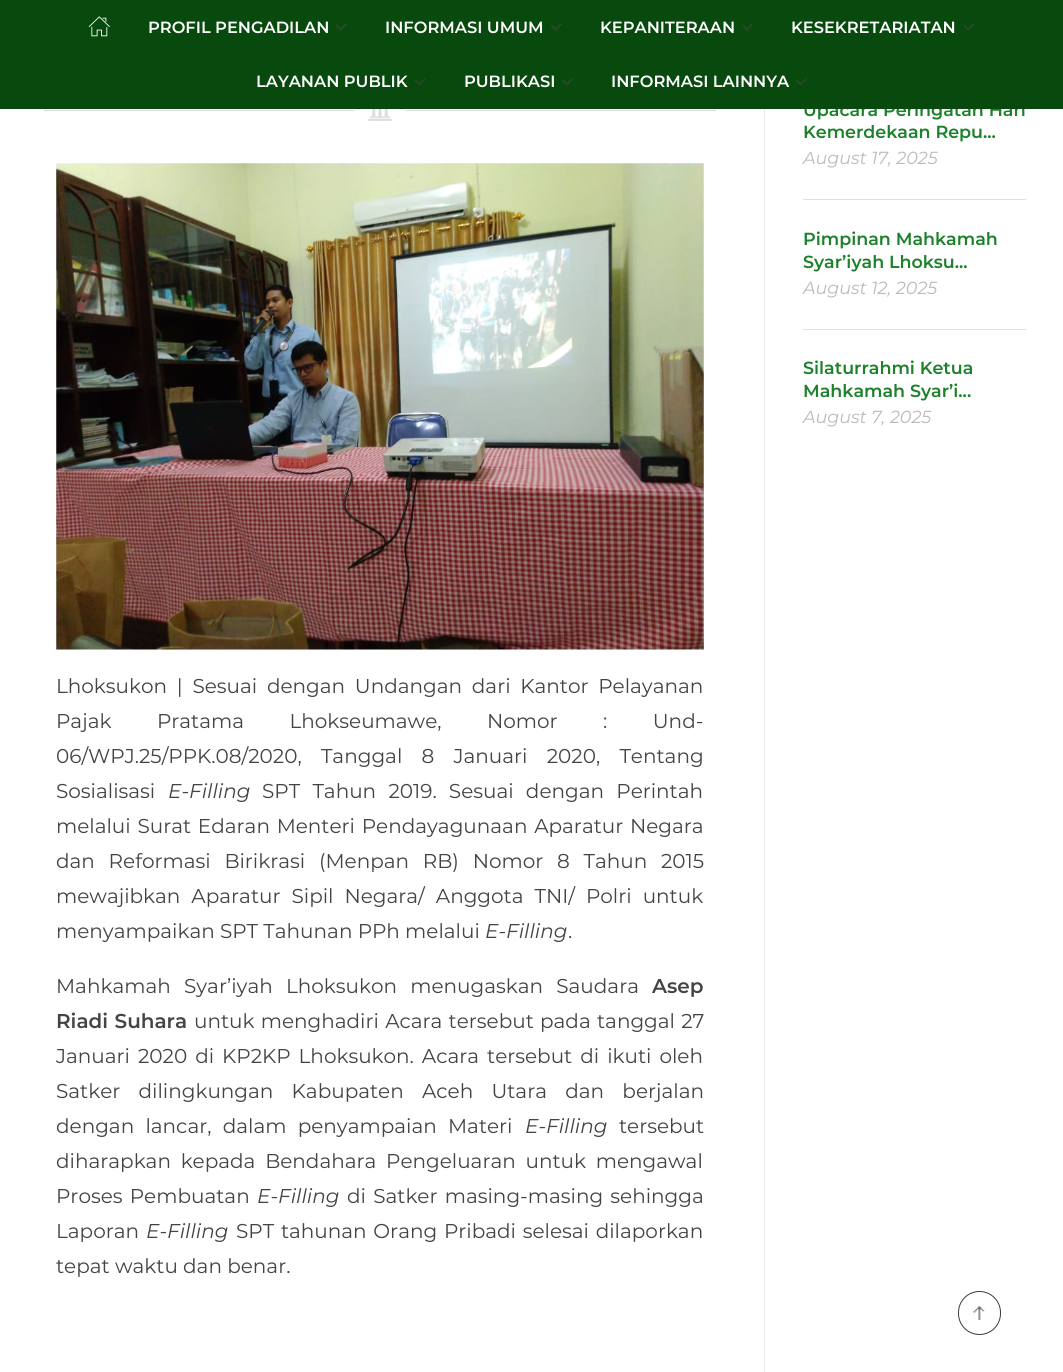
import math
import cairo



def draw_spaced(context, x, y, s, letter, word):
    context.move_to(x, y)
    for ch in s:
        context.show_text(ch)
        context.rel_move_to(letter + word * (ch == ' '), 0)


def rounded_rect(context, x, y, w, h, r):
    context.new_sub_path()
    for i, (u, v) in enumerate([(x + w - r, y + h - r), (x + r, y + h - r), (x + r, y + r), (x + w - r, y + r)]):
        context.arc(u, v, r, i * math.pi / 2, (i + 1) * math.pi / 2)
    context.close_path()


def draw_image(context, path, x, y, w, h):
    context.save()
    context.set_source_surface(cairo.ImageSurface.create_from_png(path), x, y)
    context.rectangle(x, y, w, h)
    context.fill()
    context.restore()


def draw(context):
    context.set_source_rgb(1, 1, 1)
    context.paint()
    context.set_source_rgb(234 / 255, 234 / 255, 234 / 255)
    context.rectangle(764, 109, 1, 1263)
    context.fill()
    context.set_source_rgb(224 / 255, 224 / 255, 224 / 255)
    context.rectangle(803, 199, 223, 1)
    context.fill()
    context.rectangle(803, 329, 223, 1)
    context.fill()
    context.set_source_rgb(222 / 255, 222 / 255, 222 / 255)
    context.rectangle(44, 110, 311, 1)
    context.fill()
    draw_image(context, "images/8.png", 368, 109, 24, 12)
    context.rectangle(405, 110, 311, 1)
    context.fill()
    draw_image(context, "images/9.png", 56, 163, 648, 487)
    rounded_rect(context, 958.5, 1291.5, 42, 43, 21)
    context.set_source_rgb(61 / 255, 61 / 255, 61 / 255)
    context.set_line_width(1)
    context.stroke()
    draw_image(context, "images/10.png", 973, 1306, 12, 14)
    context.select_font_face("Montserrat SemiBold")
    context.set_font_size(17.5)
    context.set_source_rgb(28 / 255, 129 / 255, 42 / 255)
    context.move_to(803, 116)
    context.show_text("Upacara Peringatan Hari")
    context.set_source_rgb(8 / 255, 73 / 255, 13 / 255)
    context.rectangle(0, 0, 1063, 109)
    context.fill()
    draw_image(context, "images/7.png", 795, 78, 12, 8)
    context.set_font_size(16.25)
    context.set_source_rgb(1, 1, 1)
    context.move_to(611, 87)
    context.show_text("INFORMASI LAINNYA")
    draw_image(context, "images/6.png", 562, 78, 11, 8)
    context.move_to(464, 87)
    context.show_text("PUBLIKASI")
    draw_image(context, "images/5.png", 414, 78, 12, 8)
    context.move_to(256, 87)
    context.show_text("LAYANAN PUBLIK")
    draw_image(context, "images/4.png", 963, 24, 11, 7)
    context.move_to(791, 33)
    context.show_text("KESEKRETARIATAN")
    draw_image(context, "images/3.png", 742, 24, 11, 7)
    context.move_to(600, 33)
    context.show_text("KEPANITERAAN")
    draw_image(context, "images/2.png", 551, 24, 11, 7)
    context.move_to(385, 33)
    context.show_text("INFORMASI UMUM")
    draw_image(context, "images/2.png", 336, 24, 11, 7)
    context.move_to(148, 33)
    context.show_text("PROFIL PENGADILAN")
    draw_image(context, "images/1.png", 88, 16, 22, 21)
    context.set_font_size(17.5)
    context.set_source_rgb(28 / 255, 129 / 255, 42 / 255)
    context.move_to(803, 138)
    context.show_text("Kemerdekaan Repu...")
    context.select_font_face("Montserrat", cairo.FontSlant.ITALIC)
    context.set_source_rgb(187 / 255, 187 / 255, 187 / 255)
    context.move_to(803, 164)
    context.show_text("August 17, 2025")
    context.select_font_face("Montserrat SemiBold")
    context.set_source_rgb(28 / 255, 129 / 255, 42 / 255)
    context.move_to(803, 245)
    context.show_text("Pimpinan Mahkamah")
    context.move_to(803, 268)
    context.show_text("Syar’iyah Lhoksu...")
    context.select_font_face("Montserrat", cairo.FontSlant.ITALIC)
    context.set_source_rgb(187 / 255, 187 / 255, 187 / 255)
    context.move_to(803, 294)
    context.show_text("August 12, 2025")
    context.select_font_face("Montserrat SemiBold")
    context.set_source_rgb(28 / 255, 129 / 255, 42 / 255)
    context.move_to(803, 374)
    context.show_text("Silaturrahmi Ketua")
    context.move_to(803, 397)
    context.show_text("Mahkamah Syar’i...")
    context.select_font_face("Montserrat", cairo.FontSlant.ITALIC)
    context.set_source_rgb(187 / 255, 187 / 255, 187 / 255)
    context.move_to(803, 423)
    context.show_text("August 7, 2025")
    context.select_font_face("Montserrat")
    context.set_font_size(20)
    context.set_source_rgb(68 / 255, 68 / 255, 68 / 255)
    draw_spaced(context, 56, 693, "Lhoksukon | Sesuai dengan Undangan dari Kantor Pelayanan", 0, 4.5)
    draw_spaced(context, 56, 728, "Pajak Pratama Lhokseumawe, Nomor : Und-", 0, 40.25)
    draw_spaced(context, 56, 763, "06/WPJ.25/PPK.08/2020, Tanggal 8 Januari 2020, Tentang", 0, 14)
    context.move_to(56, 798)
    context.show_text("Sosialisasi")
    context.select_font_face("Montserrat", cairo.FontSlant.ITALIC)
    context.move_to(168, 798)
    context.show_text("E-Filling")
    context.select_font_face("Montserrat")
    draw_spaced(context, 262, 798, "SPT Tahun 2019. Sesuai dengan Perintah", 0, 7)
    draw_spaced(context, 56, 833, "melalui Surat Edaran Menteri Pendayagunaan Aparatur Negara", 0, 1.5)
    draw_spaced(context, 56, 868, "dan Reformasi Birikrasi (Menpan RB) Nomor 8 Tahun 2015", 0, 8.5)
    draw_spaced(context, 56, 903, "mewajibkan Aparatur Sipil Negara/ Anggota TNI/ Polri untuk", 0, 5.75)
    context.move_to(56, 938)
    context.show_text("menyampaikan SPT Tahunan PPh melalui")
    context.select_font_face("Montserrat", cairo.FontSlant.ITALIC)
    context.move_to(485, 938)
    context.show_text("E-Filling")
    context.select_font_face("Montserrat")
    context.move_to(568, 938)
    context.show_text(".")
    draw_spaced(context, 56, 993, "Mahkamah Syar’iyah Lhoksukon menugaskan Saudara", 0, 8)
    context.select_font_face("Montserrat SemiBold")
    context.move_to(652, 993)
    context.show_text("Asep")
    draw_spaced(context, 56, 1028, "Riadi Suhara", 0, 1)
    context.select_font_face("Montserrat")
    draw_spaced(context, 194, 1028, "untuk menghadiri Acara tersebut pada tanggal 27", 0, 1)
    draw_spaced(context, 56, 1063, "Januari 2020 di KP2KP Lhoksukon. Acara tersebut di ikuti oleh", 0, 2.75)
    draw_spaced(context, 56, 1098, "Satker dilingkungan Kabupaten Aceh Utara dan berjalan", 0, 13)
    draw_spaced(context, 56, 1133, "dengan lancar, dalam penyampaian Materi", 0, 6)
    context.select_font_face("Montserrat", cairo.FontSlant.ITALIC)
    context.move_to(525, 1133)
    context.show_text("E-Filling")
    context.select_font_face("Montserrat")
    context.move_to(619, 1133)
    context.show_text("tersebut")
    draw_spaced(context, 56, 1168, "diharapkan kepada Bendahara Pengeluaran untuk mengawal", 0, 4.5)
    draw_spaced(context, 56, 1203, "Proses Pembuatan", 0, 2)
    context.select_font_face("Montserrat", cairo.FontSlant.ITALIC)
    context.move_to(257, 1203)
    context.show_text("E-Filling")
    context.select_font_face("Montserrat")
    draw_spaced(context, 347, 1203, "di Satker masing-masing sehingga", 0, 2)
    context.move_to(56, 1238)
    context.show_text("Laporan")
    context.select_font_face("Montserrat", cairo.FontSlant.ITALIC)
    context.move_to(146, 1238)
    context.show_text("E-Filling")
    context.select_font_face("Montserrat")
    draw_spaced(context, 236, 1238, "SPT tahunan Orang Pribadi selesai dilaporkan", 0, 1.5)
    context.move_to(56, 1273)
    context.show_text("tepat waktu dan benar.")


surface = cairo.ImageSurface(cairo.Format.RGB24, 1063, 1372)
context = cairo.Context(surface)
options = cairo.FontOptions()
options.set_hint_metrics(cairo.HintMetrics.OFF)
options.set_hint_style(cairo.HintStyle.NONE)
context.set_font_options(options)
context.set_miter_limit(4)
draw(context)
surface.write_to_png("out.png")
